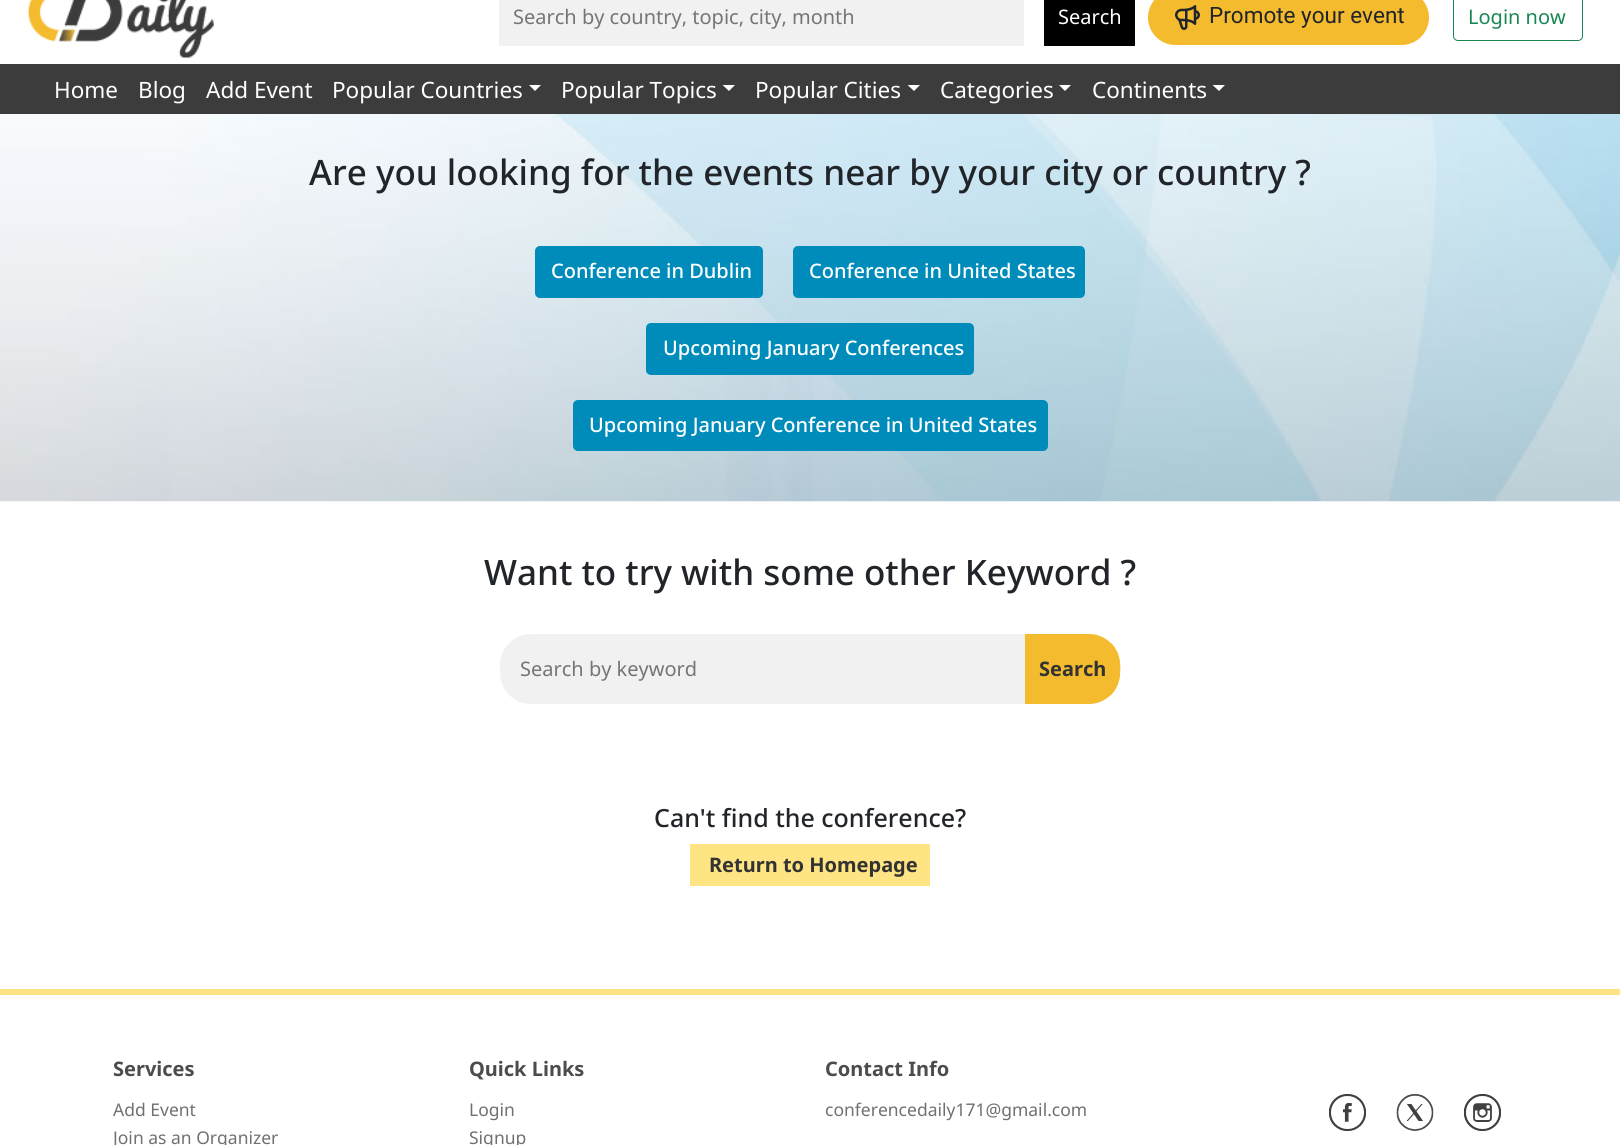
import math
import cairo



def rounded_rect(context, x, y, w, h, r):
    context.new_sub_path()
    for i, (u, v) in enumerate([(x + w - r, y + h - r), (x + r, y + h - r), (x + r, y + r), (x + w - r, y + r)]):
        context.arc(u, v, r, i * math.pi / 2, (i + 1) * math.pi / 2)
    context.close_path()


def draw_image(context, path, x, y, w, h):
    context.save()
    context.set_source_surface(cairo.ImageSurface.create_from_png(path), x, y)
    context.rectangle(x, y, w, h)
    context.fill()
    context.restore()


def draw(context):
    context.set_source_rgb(1, 1, 1)
    context.paint()
    draw_image(context, "images/1.png", 27, 0, 187, 58)
    context.set_source_rgb(241 / 255, 241 / 255, 241 / 255)
    context.rectangle(499, 0, 525, 46)
    context.fill()
    context.set_source_rgb(0, 0, 0)
    context.rectangle(1044, 0, 91, 46)
    context.fill()
    context.set_source_rgb(244 / 255, 187 / 255, 46 / 255)
    rounded_rect(context, 1148, -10, 281, 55, 27.5)
    context.fill()
    draw_image(context, "images/2.png", 1175, 5, 25, 25)
    rounded_rect(context, 1453.5, -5.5, 129, 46, 4.5)
    context.set_source_rgb(25 / 255, 135 / 255, 84 / 255)
    context.set_line_width(1)
    context.stroke()
    context.set_source_rgb(60 / 255, 60 / 255, 60 / 255)
    context.rectangle(0, 64, 1620, 50)
    context.fill()
    context.set_source_rgb(1, 1, 1)
    context.new_path()
    context.move_to(529, 85)
    context.line_to(541, 85)
    context.line_to(535, 91)
    context.close_path()
    context.fill()
    context.new_path()
    context.move_to(722.5, 85)
    context.line_to(735, 85)
    context.line_to(729, 91)
    context.close_path()
    context.fill()
    context.new_path()
    context.move_to(907.5, 85)
    context.line_to(920, 85)
    context.line_to(914, 91)
    context.close_path()
    context.fill()
    context.new_path()
    context.move_to(1059, 85)
    context.line_to(1071, 85)
    context.line_to(1065, 91)
    context.close_path()
    context.fill()
    context.new_path()
    context.move_to(1212.5, 85)
    context.line_to(1225, 85)
    context.line_to(1219, 91)
    context.close_path()
    context.fill()
    draw_image(context, "images/3.png", 0, 114, 1620, 388)
    context.set_source_rgb(0, 140 / 255, 186 / 255)
    rounded_rect(context, 535, 246, 228, 52, 5)
    context.fill()
    rounded_rect(context, 793, 246, 292, 52, 5)
    context.fill()
    rounded_rect(context, 646, 323, 328, 52, 5)
    context.fill()
    rounded_rect(context, 573, 400, 475, 51, 5)
    context.fill()
    context.set_source_rgb(241 / 255, 241 / 255, 241 / 255)
    context.new_path()
    context.move_to(531, 634)
    context.line_to(1025, 634)
    context.line_to(1025, 704)
    context.line_to(531, 704)
    context.curve_to(514, 704, 500, 690, 500, 673)
    context.line_to(500, 665)
    context.curve_to(500, 648, 514, 634, 531, 634)
    context.close_path()
    context.fill()
    context.set_source_rgb(244 / 255, 187 / 255, 46 / 255)
    context.new_path()
    context.move_to(1025, 634)
    context.line_to(1089, 634)
    context.curve_to(1106, 634, 1120, 648, 1120, 665)
    context.line_to(1120, 673)
    context.curve_to(1120, 690, 1106, 704, 1089, 704)
    context.line_to(1025, 704)
    context.close_path()
    context.fill()
    context.new_path()
    context.move_to(1111, 643)
    context.curve_to(1124, 656, 1123, 682, 1111, 695)
    context.line_to(1110, 694)
    context.curve_to(1122, 681, 1122, 656, 1110, 644)
    context.close_path()
    context.fill()
    context.set_source_rgb(1, 228 / 255, 132 / 255)
    context.rectangle(690, 844, 240, 42)
    context.fill()
    context.rectangle(0, 989, 1620, 6)
    context.fill()
    draw_image(context, "images/4.png", 1329, 1094, 37, 37)
    draw_image(context, "images/5.png", 1396, 1094, 38, 37)
    draw_image(context, "images/6.png", 1464, 1094, 37, 37)
    context.select_font_face("Noto Sans")
    context.set_font_size(20)
    context.set_source_rgb(117 / 255, 117 / 255, 117 / 255)
    context.move_to(513, 24)
    context.show_text("Search by country, topic, city, month")
    context.set_source_rgb(1, 1, 1)
    context.move_to(1058, 24)
    context.show_text("Search")
    context.select_font_face("Roboto")
    context.set_font_size(22.5)
    context.set_source_rgb(33 / 255, 37 / 255, 41 / 255)
    context.move_to(1209, 23)
    context.show_text("Promote your event")
    context.select_font_face("Noto Sans")
    context.set_font_size(20)
    context.set_source_rgb(25 / 255, 135 / 255, 84 / 255)
    context.move_to(1468, 24)
    context.show_text("Login now")
    context.set_font_size(22.5)
    context.set_source_rgb(1, 1, 1)
    context.move_to(54, 98)
    context.show_text("Home")
    context.move_to(138, 98)
    context.show_text("Blog")
    context.move_to(206, 98)
    context.show_text("Add Event")
    context.move_to(332, 98)
    context.show_text("Popular Countries")
    context.move_to(561, 98)
    context.show_text("Popular Topics")
    context.move_to(755, 98)
    context.show_text("Popular Cities")
    context.move_to(940, 98)
    context.show_text("Categories")
    context.move_to(1092, 98)
    context.show_text("Continents")
    context.select_font_face("Noto Sans Medium")
    context.set_font_size(35)
    context.set_source_rgb(33 / 255, 37 / 255, 41 / 255)
    context.move_to(309, 185)
    context.show_text("Are you looking for the events near by your city or country ?")
    context.set_font_size(20)
    context.set_source_rgb(1, 1, 1)
    context.move_to(551, 278)
    context.show_text("Conference in Dublin")
    context.move_to(809, 278)
    context.show_text("Conference in United States")
    context.move_to(663, 355)
    context.show_text("Upcoming January Conferences")
    context.move_to(589, 432)
    context.show_text("Upcoming January Conference in United States")
    context.set_font_size(35)
    context.set_source_rgb(33 / 255, 37 / 255, 41 / 255)
    context.move_to(484, 585)
    context.show_text("Want to try with some other Keyword ?")
    context.select_font_face("Noto Sans")
    context.set_font_size(20)
    context.set_source_rgb(117 / 255, 117 / 255, 117 / 255)
    context.move_to(520, 676)
    context.show_text("Search by keyword")
    context.select_font_face("Noto Sans", cairo.FontSlant.NORMAL, cairo.FontWeight.BOLD)
    context.set_source_rgb(51 / 255, 51 / 255, 51 / 255)
    context.move_to(1039, 676)
    context.show_text("Search")
    context.select_font_face("Noto Sans Medium")
    context.set_font_size(25)
    context.set_source_rgb(33 / 255, 37 / 255, 41 / 255)
    context.move_to(654, 827)
    context.show_text("Can't find the conference?")
    context.select_font_face("Noto Sans", cairo.FontSlant.NORMAL, cairo.FontWeight.BOLD)
    context.set_font_size(20)
    context.set_source_rgb(51 / 255, 51 / 255, 51 / 255)
    context.move_to(709, 872)
    context.show_text("Return to Homepage")
    context.set_source_rgb(75 / 255, 76 / 255, 77 / 255)
    context.move_to(113, 1076)
    context.show_text("Services")
    context.select_font_face("Noto Sans")
    context.set_font_size(17.5)
    context.set_source_rgb(111 / 255, 112 / 255, 113 / 255)
    context.move_to(113, 1116)
    context.show_text("Add Event")
    context.move_to(113, 1144)
    context.show_text("Join as an Organizer")
    context.select_font_face("Noto Sans", cairo.FontSlant.NORMAL, cairo.FontWeight.BOLD)
    context.set_font_size(20)
    context.set_source_rgb(75 / 255, 76 / 255, 77 / 255)
    context.move_to(469, 1076)
    context.show_text("Quick Links")
    context.select_font_face("Noto Sans")
    context.set_font_size(17.5)
    context.set_source_rgb(111 / 255, 112 / 255, 113 / 255)
    context.move_to(469, 1116)
    context.show_text("Login")
    context.move_to(469, 1144)
    context.show_text("Signup")
    context.select_font_face("Noto Sans", cairo.FontSlant.NORMAL, cairo.FontWeight.BOLD)
    context.set_font_size(20)
    context.set_source_rgb(75 / 255, 76 / 255, 77 / 255)
    context.move_to(825, 1076)
    context.show_text("Contact Info")
    context.select_font_face("Noto Sans")
    context.set_font_size(17.5)
    context.set_source_rgb(111 / 255, 112 / 255, 113 / 255)
    context.move_to(825, 1116)
    context.show_text("conferencedaily171@gmail.com")


surface = cairo.ImageSurface(cairo.Format.RGB24, 1620, 1145)
context = cairo.Context(surface)
options = cairo.FontOptions()
options.set_hint_metrics(cairo.HintMetrics.OFF)
options.set_hint_style(cairo.HintStyle.NONE)
context.set_font_options(options)
context.set_miter_limit(4)
draw(context)
surface.write_to_png("out.png")
